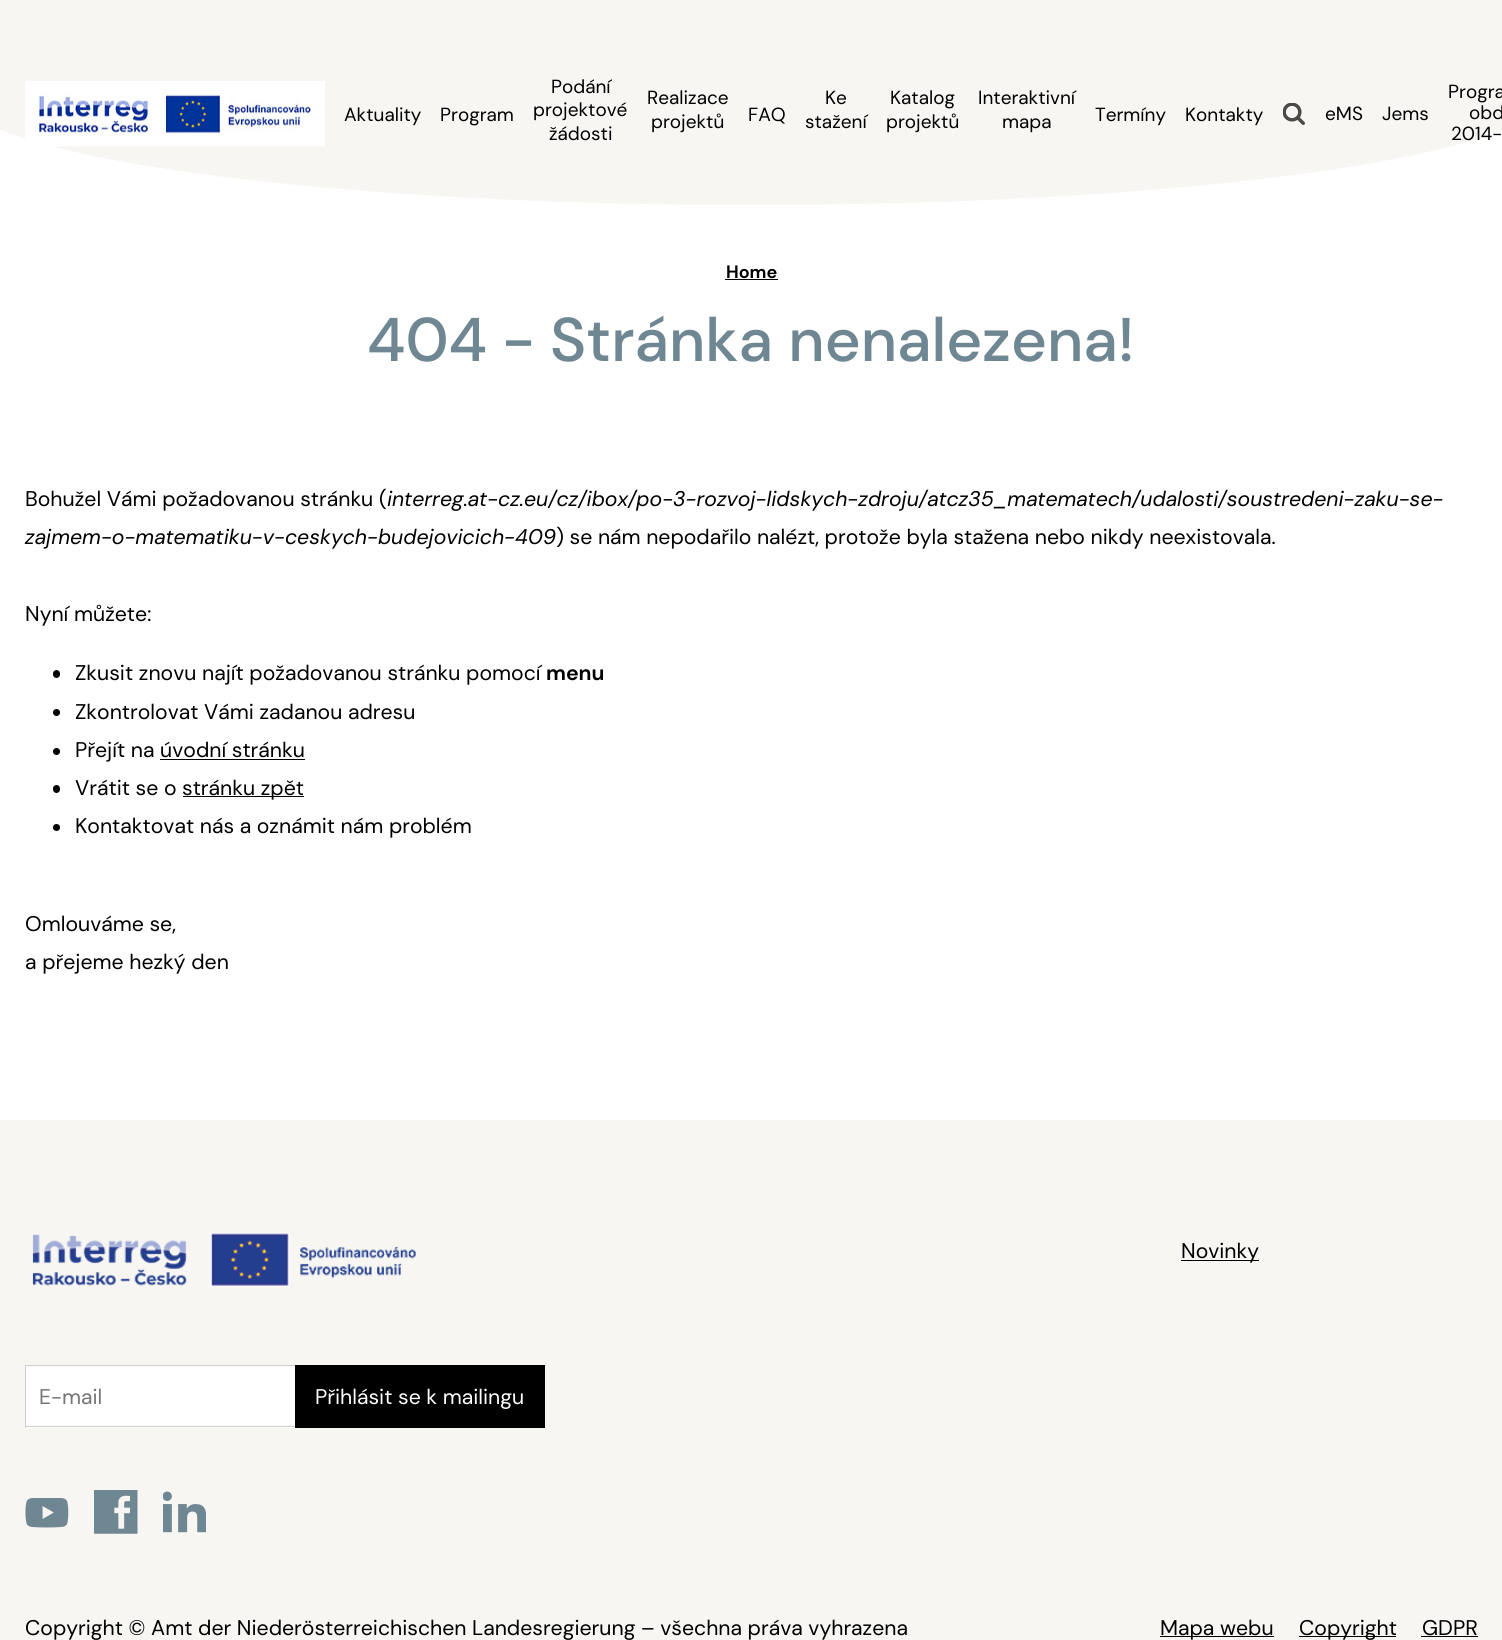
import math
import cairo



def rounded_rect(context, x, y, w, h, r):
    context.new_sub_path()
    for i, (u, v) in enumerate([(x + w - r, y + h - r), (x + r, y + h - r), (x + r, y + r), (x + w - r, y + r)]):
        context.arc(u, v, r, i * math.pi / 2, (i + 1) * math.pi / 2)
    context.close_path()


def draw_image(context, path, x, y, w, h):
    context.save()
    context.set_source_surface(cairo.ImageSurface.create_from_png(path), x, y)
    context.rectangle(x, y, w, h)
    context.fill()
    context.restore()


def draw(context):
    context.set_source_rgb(1, 1, 1)
    context.paint()
    context.set_source_rgb(247 / 255, 246 / 255, 242 / 255)
    context.new_path()
    context.move_to(-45, -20)
    context.line_to(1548, -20)
    context.line_to(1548, 92)
    context.curve_to(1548, 155, 1191, 205, 751, 205)
    context.curve_to(311, 205, -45, 155, -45, 92)
    context.close_path()
    context.fill()
    context.set_source_rgb(1, 1, 1)
    context.rectangle(25, 81, 300, 65)
    context.fill()
    draw_image(context, "images/1.png", 37, 93, 288, 54)
    draw_image(context, "images/2.png", 1283, 103, 22, 22)
    context.set_source_rgb(0, 0, 0)
    context.rectangle(725, 279, 53, 1)
    context.fill()
    rounded_rect(context, 53, 670, 7, 8, 3.5)
    context.fill()
    context.arc(56.5, 712.5, 3.5, 0, 2 * math.pi)
    context.fill()
    context.arc(56.5, 751.5, 3.5, 0, 2 * math.pi)
    context.fill()
    context.rectangle(160, 759, 145, 1)
    context.fill()
    rounded_rect(context, 53, 785, 7, 8, 3.5)
    context.fill()
    context.rectangle(183, 796, 121, 1)
    context.fill()
    context.arc(56.5, 827.5, 3.5, 0, 2 * math.pi)
    context.fill()
    context.set_source_rgb(247 / 255, 246 / 255, 242 / 255)
    context.rectangle(0, 1120, 1502, 520)
    context.fill()
    context.set_source_rgb(0, 0, 0)
    context.rectangle(1181, 1260, 78, 1)
    context.fill()
    draw_image(context, "images/3.png", 32, 1232, 384, 55)
    context.set_source_rgb(1, 1, 1)
    context.rectangle(26, 1366, 269, 62)
    context.fill()
    context.set_source_rgb(206 / 255, 206 / 255, 206 / 255)
    context.rectangle(25, 1365, 270, 1)
    context.fill()
    context.rectangle(25, 1426, 270, 1)
    context.fill()
    context.rectangle(25, 1365, 1, 63)
    context.fill()
    context.set_source_rgb(0, 0, 0)
    context.rectangle(295, 1365, 250, 63)
    context.fill()
    draw_image(context, "images/4.png", 25, 1498, 44, 30)
    draw_image(context, "images/5.png", 94, 1490, 44, 44)
    draw_image(context, "images/6.png", 163, 1491, 43, 42)
    context.rectangle(1160, 1636, 114, 1)
    context.fill()
    context.rectangle(1299, 1636, 97, 1)
    context.fill()
    context.rectangle(1421, 1636, 57, 1)
    context.fill()
    context.select_font_face("DM Sans")
    context.set_font_size(19)
    context.move_to(344, 121)
    context.show_text("Aktuality")
    context.move_to(440, 121)
    context.show_text("Program")
    context.move_to(551, 93)
    context.show_text("Podání")
    context.move_to(533, 116)
    context.show_text("projektové")
    context.move_to(549, 140)
    context.show_text("žádosti")
    context.move_to(647, 104)
    context.show_text("Realizace")
    context.move_to(651, 128)
    context.show_text("projektů")
    context.move_to(748, 121)
    context.show_text("FAQ")
    context.move_to(825, 104)
    context.show_text("Ke")
    context.move_to(805, 128)
    context.show_text("stažení")
    context.move_to(890, 104)
    context.show_text("Katalog")
    context.move_to(886, 128)
    context.show_text("projektů")
    context.move_to(978, 104)
    context.show_text("Interaktivní")
    context.move_to(1002, 128)
    context.show_text("mapa")
    context.move_to(1095, 121)
    context.show_text("Termíny")
    context.move_to(1185, 121)
    context.show_text("Kontakty")
    context.move_to(1325, 120)
    context.show_text("eMS")
    context.move_to(1382, 120)
    context.show_text("Jems")
    context.move_to(1448, 98)
    context.show_text("Progra")
    context.move_to(1469, 119)
    context.show_text("obd")
    context.move_to(1451, 140)
    context.show_text("2014-")
    context.select_font_face("DM Sans", cairo.FontSlant.NORMAL, cairo.FontWeight.BOLD)
    context.set_font_size(18)
    context.move_to(726, 278)
    context.show_text("Home")
    context.select_font_face("DM Sans Medium")
    context.set_font_size(61.6)
    context.set_source_rgb(111 / 255, 135 / 255, 146 / 255)
    context.move_to(367, 361)
    context.show_text("404 - Stránka nenalezena!")
    context.select_font_face("DM Sans")
    context.set_font_size(21.25)
    context.set_source_rgb(0, 0, 0)
    context.move_to(25, 506)
    context.show_text("Bohužel Vámi požadovanou stránku (")
    context.select_font_face("DM Sans", cairo.FontSlant.ITALIC)
    context.move_to(387, 506)
    context.show_text("interreg.at-cz.eu/cz/ibox/po-3-rozvoj-lidskych-zdroju/atcz35_matematech/udalosti/soustredeni-zaku-se-")
    context.move_to(25, 544)
    context.show_text("zajmem-o-matematiku-v-ceskych-budejovicich-409")
    context.select_font_face("DM Sans")
    context.move_to(556, 544)
    context.show_text(") se nám nepodařilo nalézt, protože byla stažena nebo nikdy neexistovala.")
    context.move_to(25, 621)
    context.show_text("Nyní můžete:")
    context.move_to(75, 680)
    context.show_text("Zkusit znovu najít požadovanou stránku pomocí")
    context.select_font_face("DM Sans", cairo.FontSlant.NORMAL, cairo.FontWeight.BOLD)
    context.move_to(546, 680)
    context.show_text("menu")
    context.select_font_face("DM Sans")
    context.move_to(75, 719)
    context.show_text("Zkontrolovat Vámi zadanou adresu")
    context.move_to(75, 757)
    context.show_text("Přejít na úvodní stránku")
    context.move_to(75, 795)
    context.show_text("Vrátit se o")
    context.move_to(182, 795)
    context.show_text("stránku zpět")
    context.move_to(75, 833)
    context.show_text("Kontaktovat nás a oznámit nám problém")
    context.move_to(25, 931)
    context.show_text("Omlouváme se,")
    context.move_to(25, 969)
    context.show_text("a přejeme hezký den")
    context.move_to(1181, 1258)
    context.show_text("Novinky")
    context.set_source_rgb(117 / 255, 117 / 255, 117 / 255)
    context.move_to(39, 1404)
    context.show_text("E-mail")
    context.set_source_rgb(1, 1, 1)
    context.move_to(315, 1404)
    context.show_text("Přihlásit se k mailingu")
    context.set_source_rgb(0, 0, 0)
    context.move_to(25, 1635)
    context.show_text("Copyright © Amt der Niederösterreichischen Landesregierung – všechna práva vyhrazena")
    context.move_to(1160, 1635)
    context.show_text("Mapa webu")
    context.move_to(1299, 1635)
    context.show_text("Copyright")
    context.move_to(1422, 1635)
    context.show_text("GDPR")


surface = cairo.ImageSurface(cairo.Format.RGB24, 1502, 1640)
context = cairo.Context(surface)
options = cairo.FontOptions()
options.set_hint_metrics(cairo.HintMetrics.OFF)
options.set_hint_style(cairo.HintStyle.NONE)
context.set_font_options(options)
context.set_miter_limit(4)
draw(context)
surface.write_to_png("out.png")
